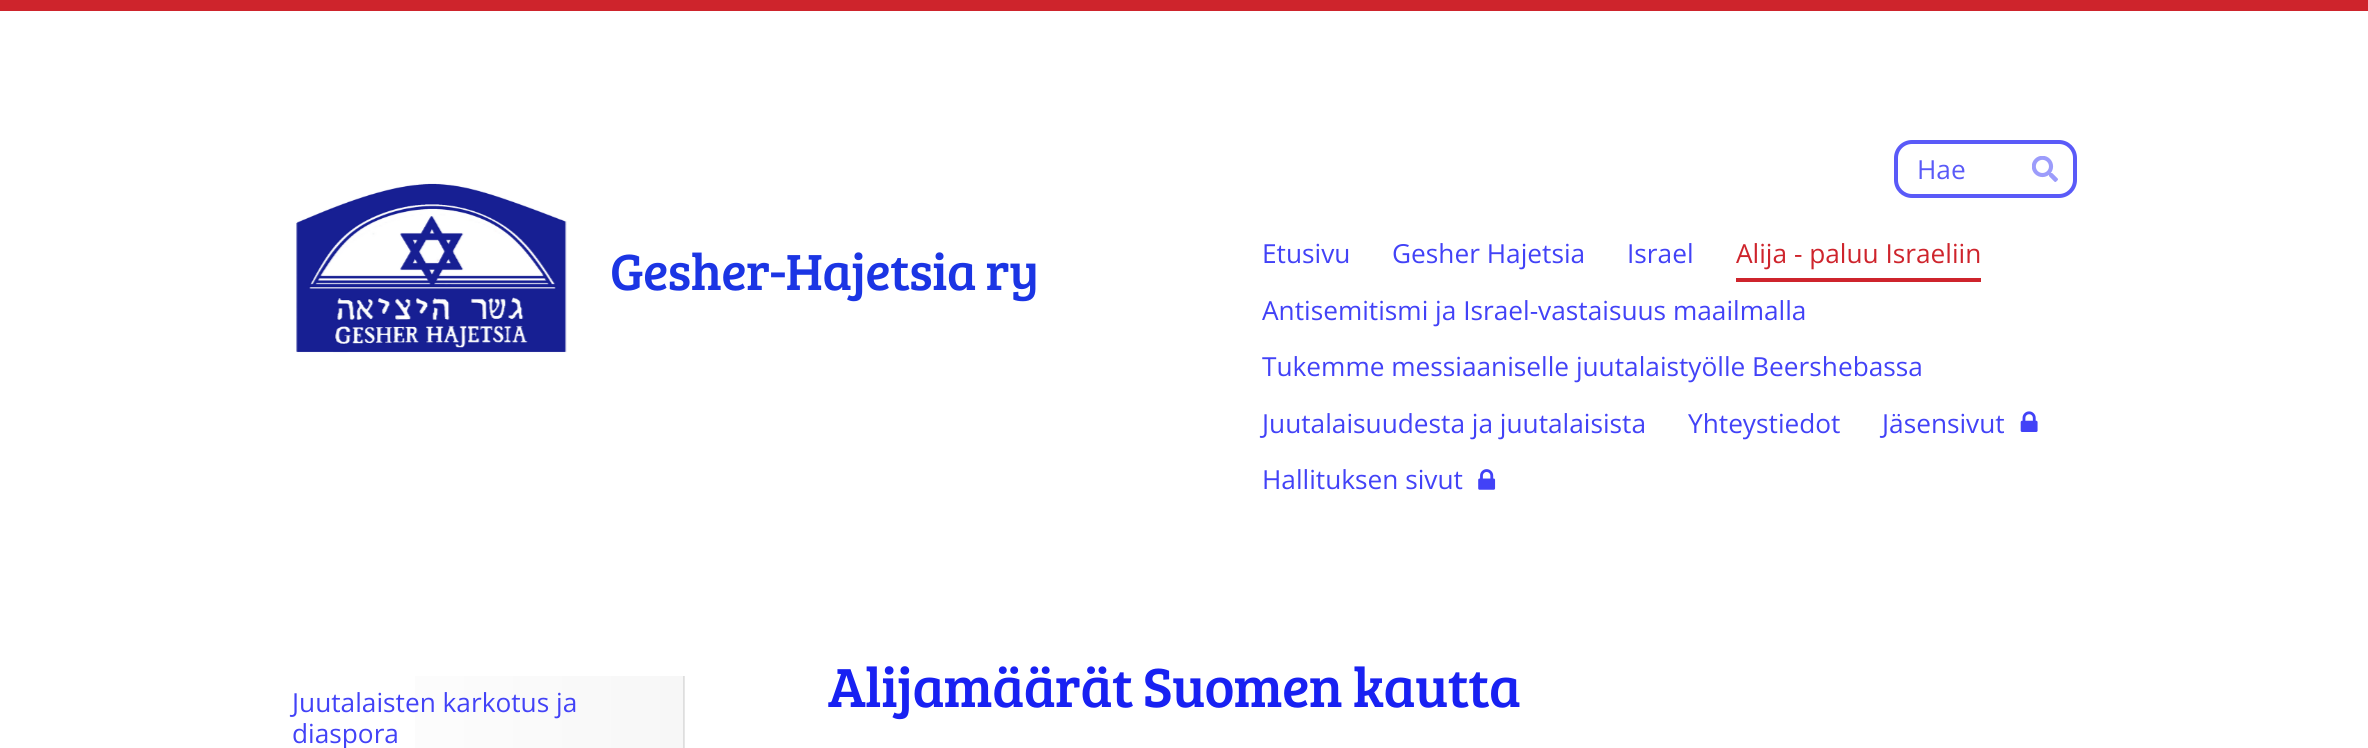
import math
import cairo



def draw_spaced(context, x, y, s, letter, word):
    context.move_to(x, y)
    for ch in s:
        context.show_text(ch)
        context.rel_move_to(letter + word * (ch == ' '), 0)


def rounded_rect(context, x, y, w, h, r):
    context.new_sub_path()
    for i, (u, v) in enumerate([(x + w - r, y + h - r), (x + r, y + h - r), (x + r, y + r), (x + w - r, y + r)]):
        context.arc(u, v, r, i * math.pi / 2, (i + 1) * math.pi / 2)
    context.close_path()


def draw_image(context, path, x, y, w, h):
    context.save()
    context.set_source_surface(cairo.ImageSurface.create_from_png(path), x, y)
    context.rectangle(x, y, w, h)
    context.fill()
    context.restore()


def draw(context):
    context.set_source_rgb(1, 1, 1)
    context.paint()
    context.set_source_rgb(230 / 255, 230 / 255, 230 / 255)
    context.rectangle(684, 676, 1, 72)
    context.fill()
    context.set_source_rgb(206 / 255, 36 / 255, 44 / 255)
    context.rectangle(0, 0, 2368, 11)
    context.fill()
    rounded_rect(context, 1896, 142, 179, 54, 16)
    context.set_source_rgb(90 / 255, 90 / 255, 248 / 255)
    context.set_line_width(4)
    context.stroke()
    draw_image(context, "images/1.png", 2032, 156, 26, 26)
    draw_image(context, "images/2.png", 296, 183, 271, 170)
    context.set_source_rgb(206 / 255, 36 / 255, 44 / 255)
    context.rectangle(1736, 278, 245, 4)
    context.fill()
    draw_image(context, "images/3.png", 2020, 411, 18, 21)
    draw_image(context, "images/4.png", 1478, 469, 18, 21)
    gradient = cairo.LinearGradient(292, 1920, 684, 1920)
    gradient.add_color_stop_rgba(0, 1, 1, 1, 1)
    gradient.add_color_stop_rgba(1, 247 / 255, 247 / 255, 247 / 255, 1)
    context.set_source(gradient)
    context.rectangle(415, 676, 268, 72)
    context.fill()
    gradient = cairo.LinearGradient(292, 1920, 684, 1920)
    gradient.add_color_stop_rgba(0, 230 / 255, 230 / 255, 230 / 255, 1)
    gradient.add_color_stop_rgba(1, 222 / 255, 222 / 255, 222 / 255, 1)
    context.set_source(gradient)
    context.rectangle(683, 676, 1, 72)
    context.fill()
    context.select_font_face("Open Sans")
    context.set_font_size(26.25)
    context.set_source_rgb(90 / 255, 90 / 255, 248 / 255)
    context.move_to(1917, 179)
    context.show_text("Hae")
    context.select_font_face("Bree Serif")
    context.set_font_size(52.5)
    context.set_source_rgb(27 / 255, 53 / 255, 228 / 255)
    draw_spaced(context, 610, 290, "Gesher-Hajetsia ry", -0.75, 0)
    context.select_font_face("Open Sans")
    context.set_font_size(26.25)
    context.set_source_rgb(66 / 255, 66 / 255, 247 / 255)
    context.move_to(1262, 263)
    context.show_text("Etusivu")
    context.move_to(1392, 263)
    context.show_text("Gesher Hajetsia")
    context.move_to(1627, 263)
    context.show_text("Israel")
    context.set_source_rgb(206 / 255, 36 / 255, 44 / 255)
    context.move_to(1736, 263)
    context.show_text("Alija - paluu Israeliin")
    context.set_source_rgb(66 / 255, 66 / 255, 247 / 255)
    context.move_to(1262, 320)
    context.show_text("Antisemitismi ja Israel-vastaisuus maailmalla")
    context.move_to(1262, 376)
    context.show_text("Tukemme messiaaniselle juutalaistyölle Beershebassa")
    context.move_to(1262, 433)
    context.show_text("Juutalaisuudesta ja juutalaisista")
    context.move_to(1688, 433)
    context.show_text("Yhteystiedot")
    context.move_to(1882, 433)
    context.show_text("Jäsensivut")
    context.move_to(1262, 489)
    context.show_text("Hallituksen sivut")
    context.move_to(292, 712)
    context.show_text("Juutalaisten karkotus ja")
    context.move_to(292, 743)
    context.show_text("diaspora")
    context.select_font_face("Bree Serif")
    context.set_font_size(56.9)
    context.set_source_rgb(24 / 255, 33 / 255, 242 / 255)
    draw_spaced(context, 828, 707, "Alijamäärät Suomen kautta", -0.85, 0)


surface = cairo.ImageSurface(cairo.Format.RGB24, 2368, 748)
context = cairo.Context(surface)
options = cairo.FontOptions()
options.set_hint_metrics(cairo.HintMetrics.OFF)
options.set_hint_style(cairo.HintStyle.NONE)
context.set_font_options(options)
context.set_miter_limit(4)
draw(context)
surface.write_to_png("out.png")
